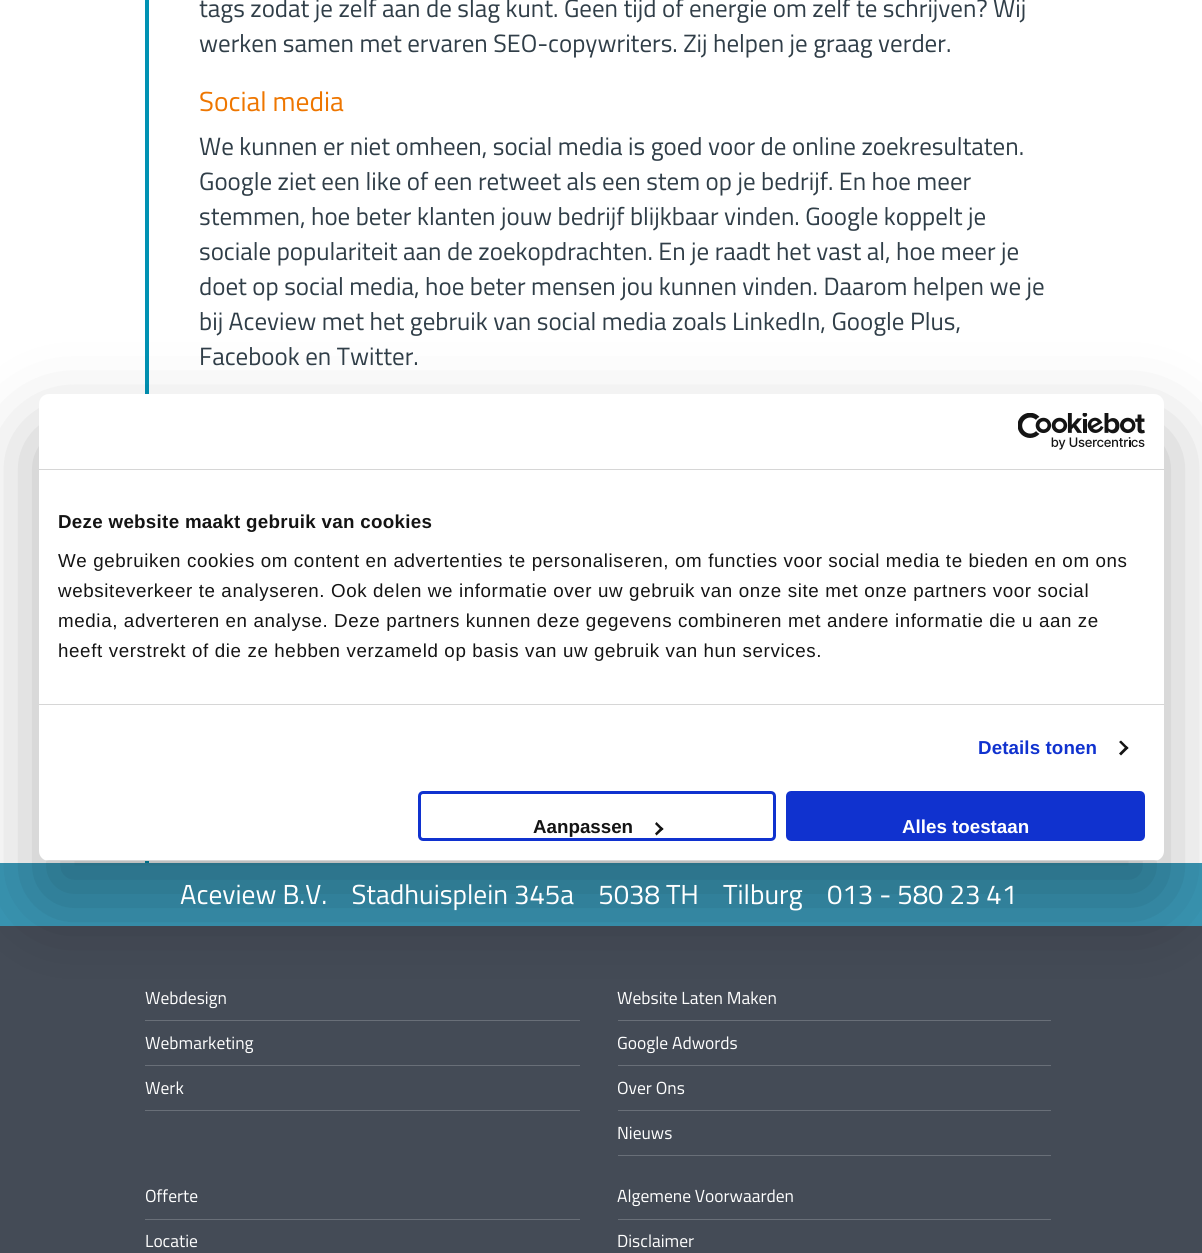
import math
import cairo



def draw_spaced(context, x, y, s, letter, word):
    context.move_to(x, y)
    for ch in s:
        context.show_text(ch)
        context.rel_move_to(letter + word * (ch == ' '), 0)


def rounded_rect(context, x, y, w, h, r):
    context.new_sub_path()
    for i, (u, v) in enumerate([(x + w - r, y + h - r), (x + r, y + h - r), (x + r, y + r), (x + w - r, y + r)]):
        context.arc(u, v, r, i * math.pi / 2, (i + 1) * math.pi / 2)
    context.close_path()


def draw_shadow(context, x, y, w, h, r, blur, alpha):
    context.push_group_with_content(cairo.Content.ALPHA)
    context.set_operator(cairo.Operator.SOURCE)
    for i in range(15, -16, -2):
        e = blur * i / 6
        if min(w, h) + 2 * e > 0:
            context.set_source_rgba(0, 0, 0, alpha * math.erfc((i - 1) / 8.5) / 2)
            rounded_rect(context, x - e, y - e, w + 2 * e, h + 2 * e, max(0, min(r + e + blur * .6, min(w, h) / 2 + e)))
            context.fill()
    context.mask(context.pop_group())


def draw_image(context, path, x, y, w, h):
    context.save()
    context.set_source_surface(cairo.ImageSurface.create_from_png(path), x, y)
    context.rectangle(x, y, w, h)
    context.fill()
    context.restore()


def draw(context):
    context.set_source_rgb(1, 1, 1)
    context.paint()
    context.set_source_rgb(0, 146 / 255, 179 / 255)
    context.rectangle(145, 0, 4, 863)
    context.fill()
    context.set_source_rgb(58 / 255, 151 / 255, 181 / 255)
    context.rectangle(0, 863, 1202, 63)
    context.fill()
    context.set_source_rgb(68 / 255, 75 / 255, 86 / 255)
    context.rectangle(0, 926, 1202, 327)
    context.fill()
    context.set_source_rgb(105 / 255, 111 / 255, 120 / 255)
    context.rectangle(145, 1020, 435, 1)
    context.fill()
    context.rectangle(618, 1020, 433, 1)
    context.fill()
    context.set_source_rgb(0, 0, 0)
    draw_shadow(context, 39, 434, 1125, 467, 10, 42.5, 0.3)
    context.set_source_rgb(1, 1, 1)
    rounded_rect(context, 39, 394, 1125, 467, 10)
    context.fill()
    context.set_source_rgb(214 / 255, 214 / 255, 214 / 255)
    context.rectangle(39, 469, 1125, 1)
    context.fill()
    draw_image(context, "images/1.png", 1018, 413, 127, 37)
    context.rectangle(39, 704, 1125, 1)
    context.fill()
    context.set_source_rgb(20 / 255, 20 / 255, 20 / 255)
    context.new_path()
    context.move_to(1121, 740.5)
    context.line_to(1128.5, 748)
    context.line_to(1126.5, 749.5)
    context.line_to(1119, 742)
    context.close_path()
    context.fill()
    context.new_path()
    context.move_to(1126.5, 746)
    context.line_to(1128.5, 748)
    context.line_to(1121, 755.5)
    context.line_to(1119, 753.5)
    context.close_path()
    context.fill()
    context.save()
    rounded_rect(context, 39, 394, 1125, 467, 10)
    context.clip()
    context.set_source_rgb(214 / 255, 214 / 255, 214 / 255)
    context.rectangle(39, 860, 1125, 1)
    context.fill()
    context.restore()
    rounded_rect(context, 419.5, 792.5, 355, 47, 3.5)
    context.set_source_rgb(16 / 255, 50 / 255, 207 / 255)
    context.set_line_width(3)
    context.stroke()
    context.set_source_rgb(20 / 255, 20 / 255, 20 / 255)
    context.new_path()
    context.move_to(656.5, 822)
    context.line_to(663.5, 829)
    context.line_to(661.5, 830.5)
    context.line_to(655, 824)
    context.close_path()
    context.fill()
    context.new_path()
    context.move_to(661.5, 827)
    context.line_to(663.5, 829)
    context.line_to(656.5, 835.5)
    context.line_to(655, 833.5)
    context.close_path()
    context.fill()
    context.set_source_rgb(16 / 255, 50 / 255, 207 / 255)
    rounded_rect(context, 787.5, 792.5, 356, 47, 3.5)
    context.fill_preserve()
    context.stroke()
    context.set_source_rgb(105 / 255, 111 / 255, 120 / 255)
    context.rectangle(145, 1065, 435, 1)
    context.fill()
    context.rectangle(145, 1110, 435, 1)
    context.fill()
    context.rectangle(618, 1065, 433, 1)
    context.fill()
    context.rectangle(618, 1110, 433, 1)
    context.fill()
    context.rectangle(618, 1155, 433, 1)
    context.fill()
    context.rectangle(145, 1219, 435, 1)
    context.fill()
    context.rectangle(618, 1219, 433, 1)
    context.fill()
    context.select_font_face("Titillium Web")
    context.set_font_size(25)
    context.set_source_rgb(48 / 255, 62 / 255, 72 / 255)
    context.move_to(199, 17)
    context.show_text("tags zodat je zelf aan de slag kunt. Geen tijd of energie om zelf te schrijven? Wij")
    context.move_to(199, 52)
    context.show_text("werken samen met ervaren SEO-copywriters. Zij helpen je graag verder.")
    context.set_font_size(27.5)
    context.set_source_rgb(238 / 255, 118 / 255, 0)
    context.move_to(199, 111)
    context.show_text("Social media")
    context.set_font_size(25)
    context.set_source_rgb(48 / 255, 62 / 255, 72 / 255)
    context.move_to(199, 155)
    context.show_text("We kunnen er niet omheen, social media is goed voor de online zoekresultaten.")
    context.move_to(199, 190)
    context.show_text("Google ziet een like of een retweet als een stem op je bedrijf. En hoe meer")
    context.move_to(199, 225)
    context.show_text("stemmen, hoe beter klanten jouw bedrijf blijkbaar vinden. Google koppelt je")
    context.move_to(199, 260)
    context.show_text("sociale populariteit aan de zoekopdrachten. En je raadt het vast al, hoe meer je")
    context.move_to(199, 295)
    context.show_text("doet op social media, hoe beter mensen jou kunnen vinden. Daarom helpen we je")
    context.move_to(199, 330)
    context.show_text("bij Aceview met het gebruik van social media zoals LinkedIn, Google Plus,")
    context.move_to(199, 365)
    context.show_text("Facebook en Twitter.")
    context.select_font_face("Liberation Sans", cairo.FontSlant.NORMAL, cairo.FontWeight.BOLD)
    context.set_font_size(18.75)
    context.set_source_rgb(20 / 255, 20 / 255, 20 / 255)
    draw_spaced(context, 58, 528, "Deze website maakt gebruik van cookies", 0.3, 0)
    context.select_font_face("Liberation Sans")
    draw_spaced(context, 58, 567, "We gebruiken cookies om content en advertenties te personaliseren, om functies voor social media te bieden en om ons", 0.62, 0)
    draw_spaced(context, 58, 597, "websiteverkeer te analyseren. Ook delen we informatie over uw gebruik van onze site met onze partners voor social", 0.62, 0)
    draw_spaced(context, 58, 627, "media, adverteren en analyse. Deze partners kunnen deze gegevens combineren met andere informatie die u aan ze", 0.62, 0)
    draw_spaced(context, 58, 657, "heeft verstrekt of die ze hebben verzameld op basis van uw gebruik van hun services.", 0.62, 0)
    context.select_font_face("Liberation Sans", cairo.FontSlant.NORMAL, cairo.FontWeight.BOLD)
    context.set_source_rgb(16 / 255, 50 / 255, 207 / 255)
    draw_spaced(context, 978, 754, "Details tonen", 0.1, 0)
    context.set_source_rgb(20 / 255, 20 / 255, 20 / 255)
    context.move_to(533, 833)
    context.show_text("Aanpassen")
    context.set_source_rgb(1, 1, 1)
    context.move_to(902, 833)
    context.show_text("Alles toestaan")
    context.select_font_face("Titillium Web")
    context.set_font_size(27.5)
    context.move_to(180, 904)
    context.show_text("Aceview B.V.    Stadhuisplein 345a    5038 TH    Tilburg    013 - 580 23 41")
    context.set_font_size(17.5)
    context.move_to(145, 1004)
    context.show_text("Webdesign")
    context.move_to(145, 1049)
    context.show_text("Webmarketing")
    context.move_to(145, 1094)
    context.show_text("Werk")
    context.move_to(617, 1004)
    context.show_text("Website Laten Maken")
    context.move_to(617, 1049)
    context.show_text("Google Adwords")
    context.move_to(617, 1094)
    context.show_text("Over Ons")
    context.move_to(617, 1139)
    context.show_text("Nieuws")
    context.move_to(145, 1202)
    context.show_text("Offerte")
    context.move_to(145, 1247)
    context.show_text("Locatie")
    context.move_to(617, 1202)
    context.show_text("Algemene Voorwaarden")
    context.move_to(617, 1247)
    context.show_text("Disclaimer")


surface = cairo.ImageSurface(cairo.Format.RGB24, 1202, 1253)
context = cairo.Context(surface)
options = cairo.FontOptions()
options.set_hint_metrics(cairo.HintMetrics.OFF)
options.set_hint_style(cairo.HintStyle.NONE)
context.set_font_options(options)
context.set_miter_limit(4)
draw(context)
surface.write_to_png("out.png")
